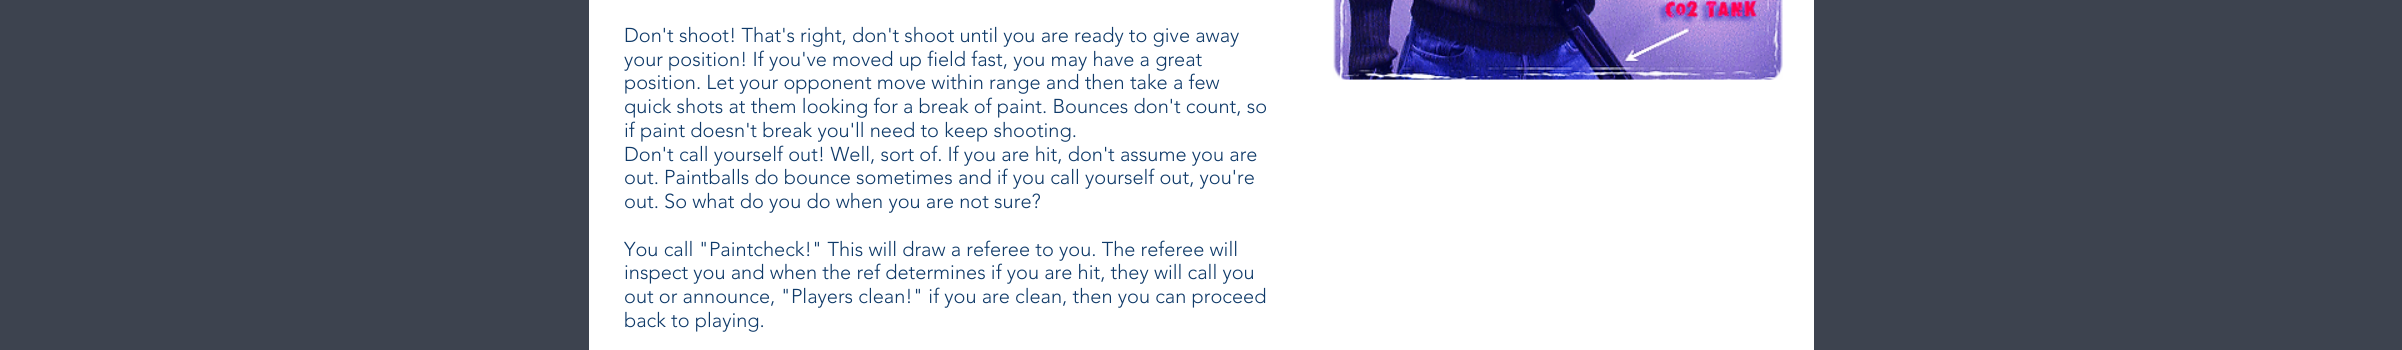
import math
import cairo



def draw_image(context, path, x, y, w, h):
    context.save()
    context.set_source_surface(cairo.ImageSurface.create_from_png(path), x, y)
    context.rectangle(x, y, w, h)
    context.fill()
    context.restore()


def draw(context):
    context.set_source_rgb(61 / 255, 67 / 255, 79 / 255)
    context.paint()
    context.set_source_rgb(1, 1, 1)
    context.rectangle(589, 0, 1225, 350)
    context.fill()
    draw_image(context, "images/1.png", 1333, 0, 450, 80)
    context.select_font_face("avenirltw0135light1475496 Light")
    context.set_font_size(20)
    context.set_source_rgb(15 / 255, 58 / 255, 105 / 255)
    context.move_to(624, 42)
    context.show_text("Don't shoot! That's right, don't shoot until you are ready to give away")
    context.move_to(624, 66)
    context.show_text("your position! If you've moved up field fast, you may have a great")
    context.move_to(624, 89)
    context.show_text("position. Let your opponent move within range and then take a few")
    context.move_to(624, 113)
    context.show_text("quick shots at them looking for a break of paint. Bounces don't count, so")
    context.move_to(624, 137)
    context.show_text("if paint doesn't break you'll need to keep shooting.")
    context.move_to(624, 161)
    context.show_text("Don't call yourself out! Well, sort of. If you are hit, don't assume you are")
    context.move_to(624, 184)
    context.show_text("out. Paintballs do bounce sometimes and if you call yourself out, you're")
    context.move_to(624, 208)
    context.show_text("out. So what do you do when you are not sure?")
    context.move_to(624, 256)
    context.show_text("You call \"Paintcheck!\" This will draw a referee to you. The referee will")
    context.move_to(624, 279)
    context.show_text("inspect you and when the ref determines if you are hit, they will call you")
    context.move_to(624, 303)
    context.show_text("out or announce, \"Players clean!\" if you are clean, then you can proceed")
    context.move_to(624, 327)
    context.show_text("back to playing.")


surface = cairo.ImageSurface(cairo.Format.RGB24, 2402, 350)
context = cairo.Context(surface)
options = cairo.FontOptions()
options.set_hint_metrics(cairo.HintMetrics.OFF)
options.set_hint_style(cairo.HintStyle.NONE)
context.set_font_options(options)
context.set_miter_limit(4)
draw(context)
surface.write_to_png("out.png")
